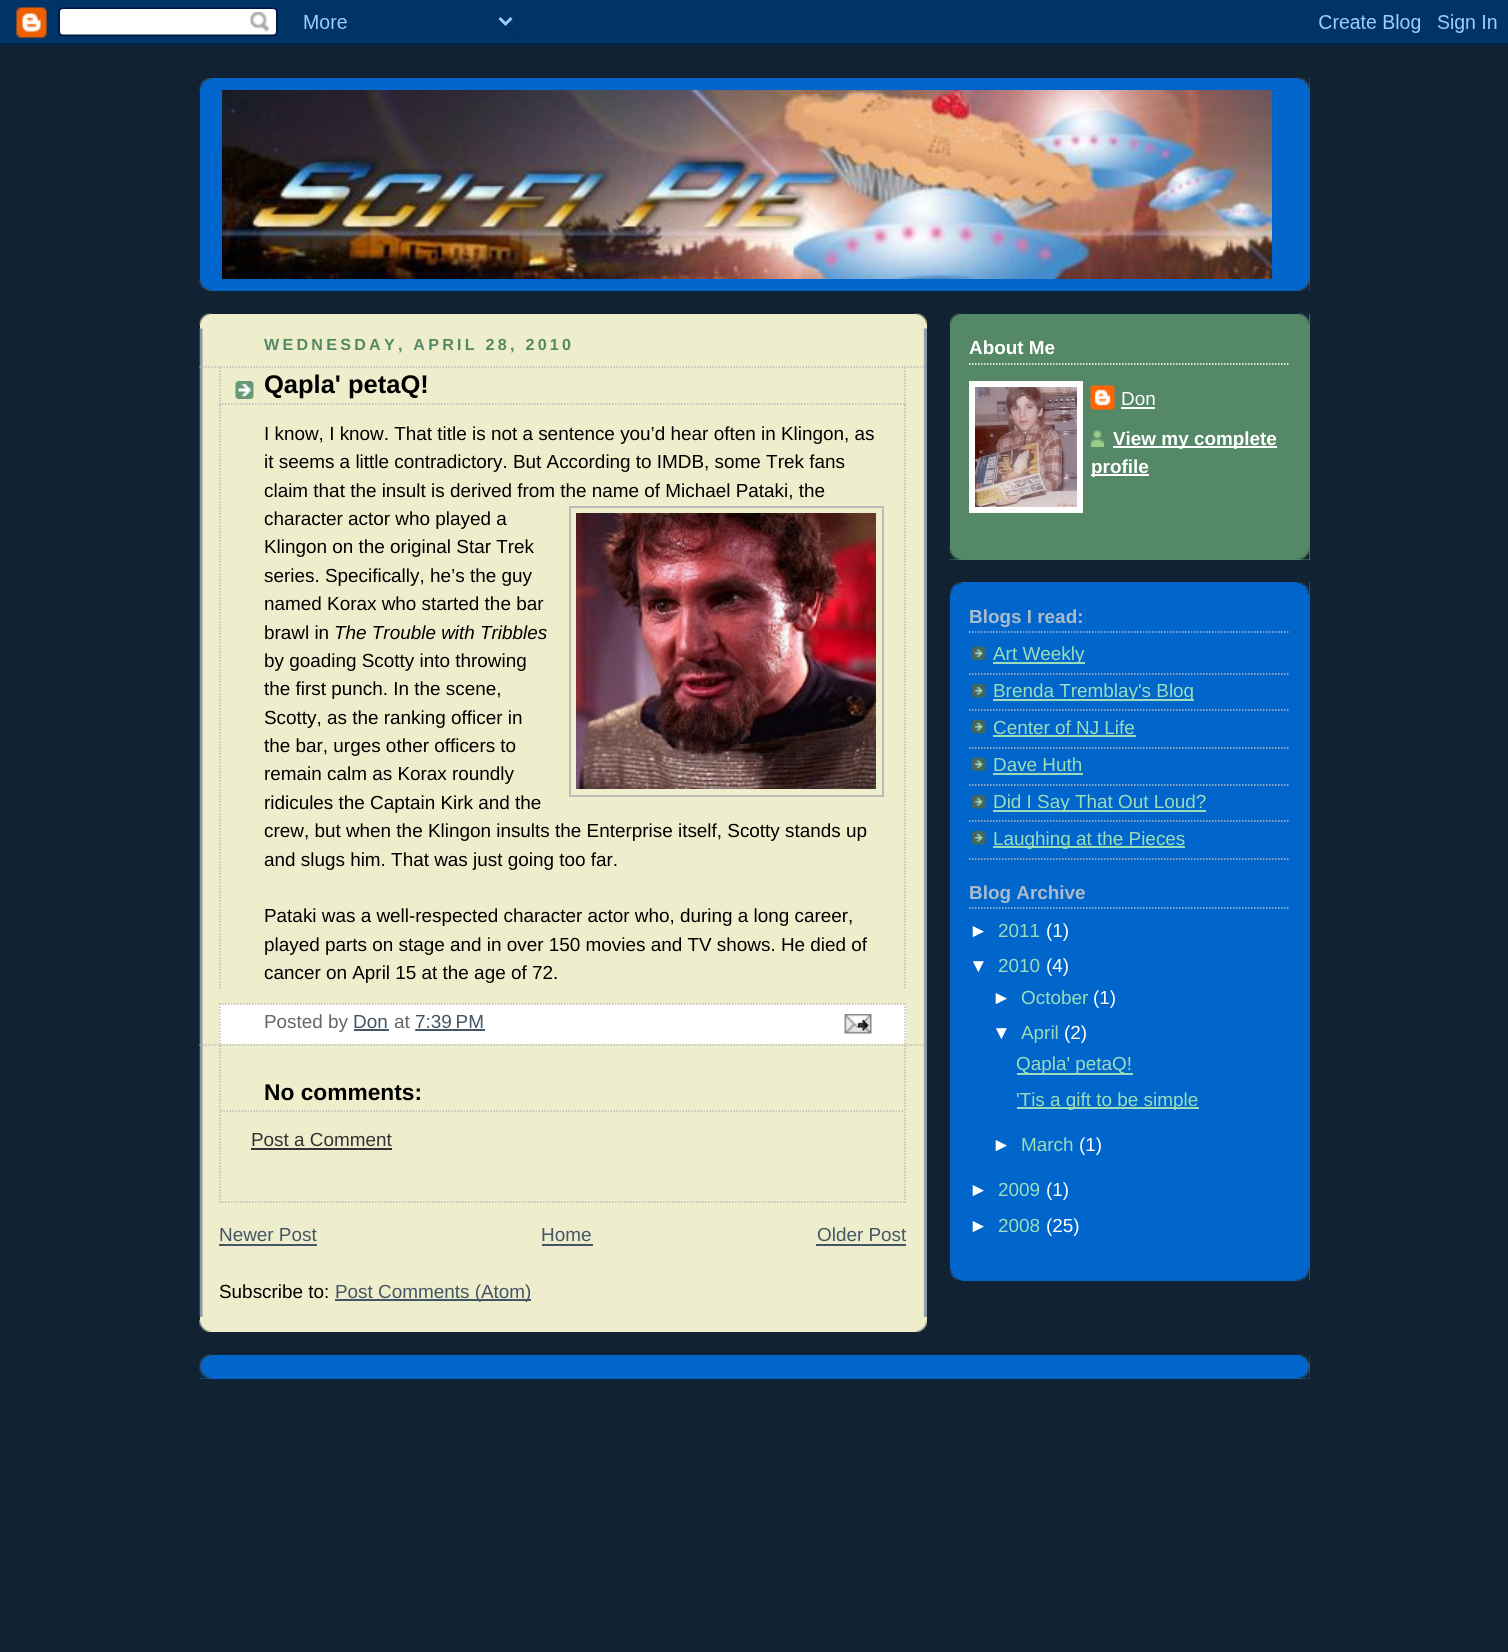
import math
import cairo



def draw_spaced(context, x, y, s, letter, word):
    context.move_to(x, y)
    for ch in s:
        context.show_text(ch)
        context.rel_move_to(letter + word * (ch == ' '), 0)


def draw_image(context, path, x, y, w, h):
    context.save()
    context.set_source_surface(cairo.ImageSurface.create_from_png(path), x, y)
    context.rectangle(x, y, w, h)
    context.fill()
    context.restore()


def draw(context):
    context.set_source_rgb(17 / 255, 34 / 255, 51 / 255)
    context.paint()
    draw_image(context, "images/1.png", 0, 0, 1508, 45)
    context.set_source_rgb(0, 102 / 255, 204 / 255)
    context.rectangle(200, 78, 1110, 213)
    context.fill()
    draw_image(context, "images/2.png", 199, 78, 1111, 12)
    draw_image(context, "images/3.png", 199, 279, 1111, 12)
    draw_image(context, "images/4.png", 222, 90, 1050, 189)
    context.set_source_rgb(238 / 255, 238 / 255, 204 / 255)
    context.rectangle(200, 314, 727, 1018)
    context.fill()
    draw_image(context, "images/5.png", 199, 1319, 728, 13)
    draw_image(context, "images/6.png", 199, 313, 728, 13)
    draw_image(context, "images/7.png", 199, 328, 728, 989)
    context.new_path()
    context.move_to(199.5, 367)
    context.line_to(925.5, 367)
    context.set_source_rgb(187 / 255, 187 / 255, 187 / 255)
    context.set_line_width(1.5)
    context.set_dash([1.5, 1.5])
    context.stroke()
    context.new_path()
    context.move_to(199.5, 1045)
    context.line_to(925.5, 1045)
    context.stroke()
    draw_image(context, "images/8.png", 235, 381, 19, 18)
    context.new_path()
    context.move_to(905, 367.5)
    context.line_to(905, 405)
    context.stroke()
    context.new_path()
    context.move_to(219, 404)
    context.line_to(906, 404)
    context.stroke()
    context.new_path()
    context.move_to(220, 367.5)
    context.line_to(220, 405)
    context.stroke()
    context.new_path()
    context.move_to(905, 405)
    context.line_to(905, 990)
    context.stroke()
    context.new_path()
    context.move_to(220, 405)
    context.line_to(220, 990)
    context.stroke()
    context.rectangle(570, 507, 313, 289)
    context.set_line_width(2)
    context.set_dash([])
    context.stroke()
    draw_image(context, "images/9.png", 576, 513, 300, 276)
    context.set_source_rgb(1, 1, 1)
    context.rectangle(219, 1004, 687, 40)
    context.fill()
    context.new_path()
    context.move_to(219, 1004)
    context.line_to(906, 1004)
    context.set_source_rgb(187 / 255, 187 / 255, 187 / 255)
    context.set_line_width(1.5)
    context.set_dash([1.5, 1.5])
    context.stroke()
    context.new_path()
    context.move_to(905, 1003.5)
    context.line_to(905, 1044)
    context.stroke()
    context.new_path()
    context.move_to(220, 1003.5)
    context.line_to(220, 1044)
    context.stroke()
    context.set_source_rgb(68 / 255, 85 / 255, 102 / 255)
    context.rectangle(354, 1029, 35, 2)
    context.fill()
    context.new_path()
    context.move_to(415, 1030)
    context.line_to(484, 1030)
    context.stroke()
    context.rectangle(416, 1029, 69, 2)
    context.fill()
    draw_image(context, "images/10.png", 844, 1014, 28, 20)
    context.new_path()
    context.move_to(905, 1045.5)
    context.line_to(905, 1203)
    context.set_source_rgb(187 / 255, 187 / 255, 187 / 255)
    context.stroke()
    context.new_path()
    context.move_to(219, 1202)
    context.line_to(906, 1202)
    context.stroke()
    context.new_path()
    context.move_to(220, 1045.5)
    context.line_to(220, 1203)
    context.stroke()
    context.new_path()
    context.move_to(220.5, 1111)
    context.line_to(904.5, 1111)
    context.stroke()
    context.set_source_rgb(51 / 255, 51 / 255, 51 / 255)
    context.rectangle(251, 1148, 141, 2)
    context.fill()
    context.set_source_rgb(68 / 255, 85 / 255, 102 / 255)
    context.rectangle(219, 1244, 98, 2)
    context.fill()
    context.rectangle(542, 1244, 51, 2)
    context.fill()
    context.rectangle(816, 1244, 90, 2)
    context.fill()
    context.rectangle(335, 1299, 196, 2)
    context.fill()
    context.set_source_rgb(85 / 255, 136 / 255, 102 / 255)
    context.rectangle(950, 314, 360, 246)
    context.fill()
    draw_image(context, "images/11.png", 949, 547, 361, 13)
    draw_image(context, "images/12.png", 949, 313, 361, 13)
    context.new_path()
    context.move_to(969, 364)
    context.line_to(1290, 364)
    context.set_source_rgb(1, 1, 1)
    context.stroke()
    context.rectangle(972, 384, 108, 126)
    context.set_line_width(6)
    context.set_dash([])
    context.stroke()
    draw_image(context, "images/13.png", 975, 387, 102, 120)
    draw_image(context, "images/14.png", 1090, 385, 25, 25)
    context.rectangle(1121, 407, 34, 2)
    context.fill()
    draw_image(context, "images/15.png", 1091, 430, 13, 17)
    context.rectangle(1113, 446, 164, 2)
    context.fill()
    context.rectangle(1091, 474, 58, 2)
    context.fill()
    context.set_source_rgb(0, 102 / 255, 204 / 255)
    context.rectangle(950, 582, 360, 699)
    context.fill()
    draw_image(context, "images/16.png", 950, 582, 360, 13)
    draw_image(context, "images/17.png", 950, 1268, 360, 13)
    context.new_path()
    context.move_to(969, 632)
    context.line_to(1290, 632)
    context.set_source_rgb(170 / 255, 187 / 255, 204 / 255)
    context.set_line_width(1.5)
    context.set_dash([1.5, 1.5])
    context.stroke()
    draw_image(context, "images/18.png", 972, 646, 14, 14)
    context.new_path()
    context.move_to(969, 674)
    context.line_to(1290, 674)
    context.set_source_rgb(187 / 255, 187 / 255, 187 / 255)
    context.stroke()
    context.set_source_rgb(153 / 255, 221 / 255, 187 / 255)
    context.rectangle(993, 662, 92, 2)
    context.fill()
    draw_image(context, "images/19.png", 972, 684, 14, 14)
    context.new_path()
    context.move_to(969, 710)
    context.line_to(1290, 710)
    context.set_source_rgb(187 / 255, 187 / 255, 187 / 255)
    context.stroke()
    context.set_source_rgb(153 / 255, 221 / 255, 187 / 255)
    context.rectangle(993, 699, 201, 2)
    context.fill()
    draw_image(context, "images/19.png", 972, 720, 14, 14)
    context.new_path()
    context.move_to(969, 748)
    context.line_to(1290, 748)
    context.set_source_rgb(187 / 255, 187 / 255, 187 / 255)
    context.stroke()
    context.set_source_rgb(153 / 255, 221 / 255, 187 / 255)
    context.rectangle(993, 735, 143, 2)
    context.fill()
    draw_image(context, "images/18.png", 972, 757, 14, 14)
    context.new_path()
    context.move_to(969, 785)
    context.line_to(1290, 785)
    context.set_source_rgb(187 / 255, 187 / 255, 187 / 255)
    context.stroke()
    context.set_source_rgb(153 / 255, 221 / 255, 187 / 255)
    context.rectangle(993, 773, 90, 2)
    context.fill()
    draw_image(context, "images/19.png", 972, 795, 14, 14)
    context.new_path()
    context.move_to(969, 821)
    context.line_to(1290, 821)
    context.set_source_rgb(187 / 255, 187 / 255, 187 / 255)
    context.stroke()
    context.set_source_rgb(153 / 255, 221 / 255, 187 / 255)
    context.rectangle(993, 810, 213, 2)
    context.fill()
    draw_image(context, "images/19.png", 972, 831, 14, 14)
    context.new_path()
    context.move_to(969, 859)
    context.line_to(1290, 859)
    context.set_source_rgb(187 / 255, 187 / 255, 187 / 255)
    context.stroke()
    context.set_source_rgb(153 / 255, 221 / 255, 187 / 255)
    context.rectangle(993, 846, 192, 2)
    context.fill()
    context.new_path()
    context.move_to(969, 908)
    context.line_to(1290, 908)
    context.set_source_rgb(170 / 255, 187 / 255, 204 / 255)
    context.stroke()
    context.set_source_rgb(153 / 255, 221 / 255, 187 / 255)
    context.rectangle(1017, 1073, 116, 2)
    context.fill()
    context.rectangle(1017, 1107, 182, 2)
    context.fill()
    context.set_source_rgb(0, 102 / 255, 204 / 255)
    context.rectangle(200, 1355, 1110, 24)
    context.fill()
    draw_image(context, "images/20.png", 199, 1354, 1111, 13)
    draw_image(context, "images/21.png", 199, 1366, 1111, 13)
    context.select_font_face("Liberation Sans", cairo.FontSlant.NORMAL, cairo.FontWeight.BOLD)
    context.set_font_size(16.1)
    context.set_source_rgb(85 / 255, 136 / 255, 102 / 255)
    draw_spaced(context, 264, 350, "WEDNESDAY, APRIL 28, 2010", 3.25, 0)
    context.set_font_size(25.5)
    context.set_source_rgb(0, 0, 0)
    context.move_to(264, 393)
    context.show_text("Qapla' petaQ!")
    context.select_font_face("Liberation Sans")
    context.set_font_size(18.9)
    context.move_to(264, 440)
    context.show_text("I know, I know. That title is not a sentence you’d hear often in Klingon, as")
    context.move_to(264, 468)
    context.show_text("it seems a little contradictory. But According to IMDB, some Trek fans")
    context.move_to(264, 497)
    context.show_text("claim that the insult is derived from the name of Michael Pataki, the")
    context.move_to(264, 525)
    context.show_text("character actor who played a")
    context.move_to(264, 553)
    context.show_text("Klingon on the original Star Trek")
    context.move_to(264, 582)
    context.show_text("series. Specifically, he’s the guy")
    context.move_to(264, 610)
    context.show_text("named Korax who started the bar")
    context.move_to(264, 639)
    context.show_text("brawl in")
    context.select_font_face("Liberation Sans", cairo.FontSlant.ITALIC)
    context.move_to(334, 639)
    context.show_text("The Trouble with Tribbles")
    context.select_font_face("Liberation Sans")
    context.move_to(264, 667)
    context.show_text("by goading Scotty into throwing")
    context.move_to(264, 695)
    context.show_text("the first punch. In the scene,")
    context.move_to(264, 724)
    context.show_text("Scotty, as the ranking officer in")
    context.move_to(264, 752)
    context.show_text("the bar, urges other officers to")
    context.move_to(264, 780)
    context.show_text("remain calm as Korax roundly")
    context.move_to(264, 809)
    context.show_text("ridicules the Captain Kirk and the")
    context.move_to(264, 837)
    context.show_text("crew, but when the Klingon insults the Enterprise itself, Scotty stands up")
    context.move_to(264, 866)
    context.show_text("and slugs him. That was just going too far.")
    context.move_to(264, 922)
    context.show_text("Pataki was a well-respected character actor who, during a long career,")
    context.move_to(264, 951)
    context.show_text("played parts on stage and in over 150 movies and TV shows. He died of")
    context.move_to(264, 979)
    context.show_text("cancer on April 15 at the age of 72.")
    context.set_source_rgb(102 / 255, 102 / 255, 102 / 255)
    context.move_to(264, 1028)
    context.show_text("Posted by")
    context.set_source_rgb(68 / 255, 85 / 255, 102 / 255)
    context.move_to(353, 1028)
    context.show_text("Don")
    context.set_source_rgb(102 / 255, 102 / 255, 102 / 255)
    context.move_to(394, 1028)
    context.show_text("at")
    context.set_source_rgb(68 / 255, 85 / 255, 102 / 255)
    context.move_to(415, 1028)
    context.show_text("7:39 PM")
    context.select_font_face("Liberation Sans", cairo.FontSlant.NORMAL, cairo.FontWeight.BOLD)
    context.set_font_size(22.75)
    context.set_source_rgb(0, 0, 0)
    context.move_to(264, 1100)
    context.show_text("No comments:")
    context.select_font_face("Liberation Sans")
    context.set_font_size(18.9)
    context.set_source_rgb(51 / 255, 51 / 255, 51 / 255)
    context.move_to(251, 1146)
    context.show_text("Post a Comment")
    context.set_source_rgb(68 / 255, 85 / 255, 102 / 255)
    context.move_to(219, 1241)
    context.show_text("Newer Post")
    context.move_to(541, 1241)
    context.show_text("Home")
    context.move_to(817, 1241)
    context.show_text("Older Post")
    context.set_source_rgb(0, 0, 0)
    context.move_to(219, 1298)
    context.show_text("Subscribe to:")
    context.set_source_rgb(68 / 255, 85 / 255, 102 / 255)
    context.move_to(335, 1298)
    context.show_text("Post Comments (Atom)")
    context.select_font_face("Liberation Sans", cairo.FontSlant.NORMAL, cairo.FontWeight.BOLD)
    context.set_source_rgb(1, 1, 1)
    context.move_to(969, 354)
    context.show_text("About Me")
    context.select_font_face("Liberation Sans")
    context.move_to(1121, 405)
    context.show_text("Don")
    context.select_font_face("Liberation Sans", cairo.FontSlant.NORMAL, cairo.FontWeight.BOLD)
    context.move_to(1113, 445)
    context.show_text("View my complete")
    context.move_to(1091, 473)
    context.show_text("profile")
    context.set_source_rgb(170 / 255, 187 / 255, 204 / 255)
    context.move_to(969, 623)
    context.show_text("Blogs I read:")
    context.select_font_face("Liberation Sans")
    context.set_source_rgb(153 / 255, 221 / 255, 187 / 255)
    context.move_to(993, 660)
    context.show_text("Art Weekly")
    context.move_to(993, 697)
    context.show_text("Brenda Tremblay's Blog")
    context.move_to(993, 734)
    context.show_text("Center of NJ Life")
    context.move_to(993, 771)
    context.show_text("Dave Huth")
    context.move_to(993, 808)
    context.show_text("Did I Say That Out Loud?")
    context.move_to(993, 845)
    context.show_text("Laughing at the Pieces")
    context.select_font_face("Liberation Sans", cairo.FontSlant.NORMAL, cairo.FontWeight.BOLD)
    context.set_source_rgb(170 / 255, 187 / 255, 204 / 255)
    context.move_to(969, 899)
    context.show_text("Blog Archive")
    context.select_font_face("Liberation Sans")
    context.set_source_rgb(1, 1, 1)
    context.move_to(969, 937)
    context.show_text("►")
    context.set_source_rgb(153 / 255, 221 / 255, 187 / 255)
    context.move_to(998, 937)
    context.show_text("2011")
    context.set_source_rgb(1, 1, 1)
    context.move_to(1046, 937)
    context.show_text("(1)")
    context.move_to(969, 972)
    context.show_text("▼")
    context.set_source_rgb(153 / 255, 221 / 255, 187 / 255)
    context.move_to(998, 972)
    context.show_text("2010")
    context.set_source_rgb(1, 1, 1)
    context.move_to(1046, 972)
    context.show_text("(4)")
    context.move_to(992, 1004)
    context.show_text("►")
    context.set_source_rgb(153 / 255, 221 / 255, 187 / 255)
    context.move_to(1021, 1004)
    context.show_text("October")
    context.set_source_rgb(1, 1, 1)
    context.move_to(1093, 1004)
    context.show_text("(1)")
    context.move_to(992, 1039)
    context.show_text("▼")
    context.set_source_rgb(153 / 255, 221 / 255, 187 / 255)
    context.move_to(1021, 1039)
    context.show_text("April")
    context.set_source_rgb(1, 1, 1)
    context.move_to(1064, 1039)
    context.show_text("(2)")
    context.set_source_rgb(153 / 255, 221 / 255, 187 / 255)
    context.move_to(1016, 1070)
    context.show_text("Qapla' petaQ!")
    context.move_to(1016, 1106)
    context.show_text("'Tis a gift to be simple")
    context.set_source_rgb(1, 1, 1)
    context.move_to(992, 1151)
    context.show_text("►")
    context.set_source_rgb(153 / 255, 221 / 255, 187 / 255)
    context.move_to(1021, 1151)
    context.show_text("March")
    context.set_source_rgb(1, 1, 1)
    context.move_to(1079, 1151)
    context.show_text("(1)")
    context.move_to(969, 1196)
    context.show_text("►")
    context.set_source_rgb(153 / 255, 221 / 255, 187 / 255)
    context.move_to(998, 1196)
    context.show_text("2009")
    context.set_source_rgb(1, 1, 1)
    context.move_to(1046, 1196)
    context.show_text("(1)")
    context.move_to(969, 1232)
    context.show_text("►")
    context.set_source_rgb(153 / 255, 221 / 255, 187 / 255)
    context.move_to(998, 1232)
    context.show_text("2008")
    context.set_source_rgb(1, 1, 1)
    context.move_to(1046, 1232)
    context.show_text("(25)")


surface = cairo.ImageSurface(cairo.Format.RGB24, 1508, 1652)
context = cairo.Context(surface)
options = cairo.FontOptions()
options.set_hint_metrics(cairo.HintMetrics.OFF)
options.set_hint_style(cairo.HintStyle.NONE)
context.set_font_options(options)
context.set_miter_limit(4)
draw(context)
surface.write_to_png("out.png")
